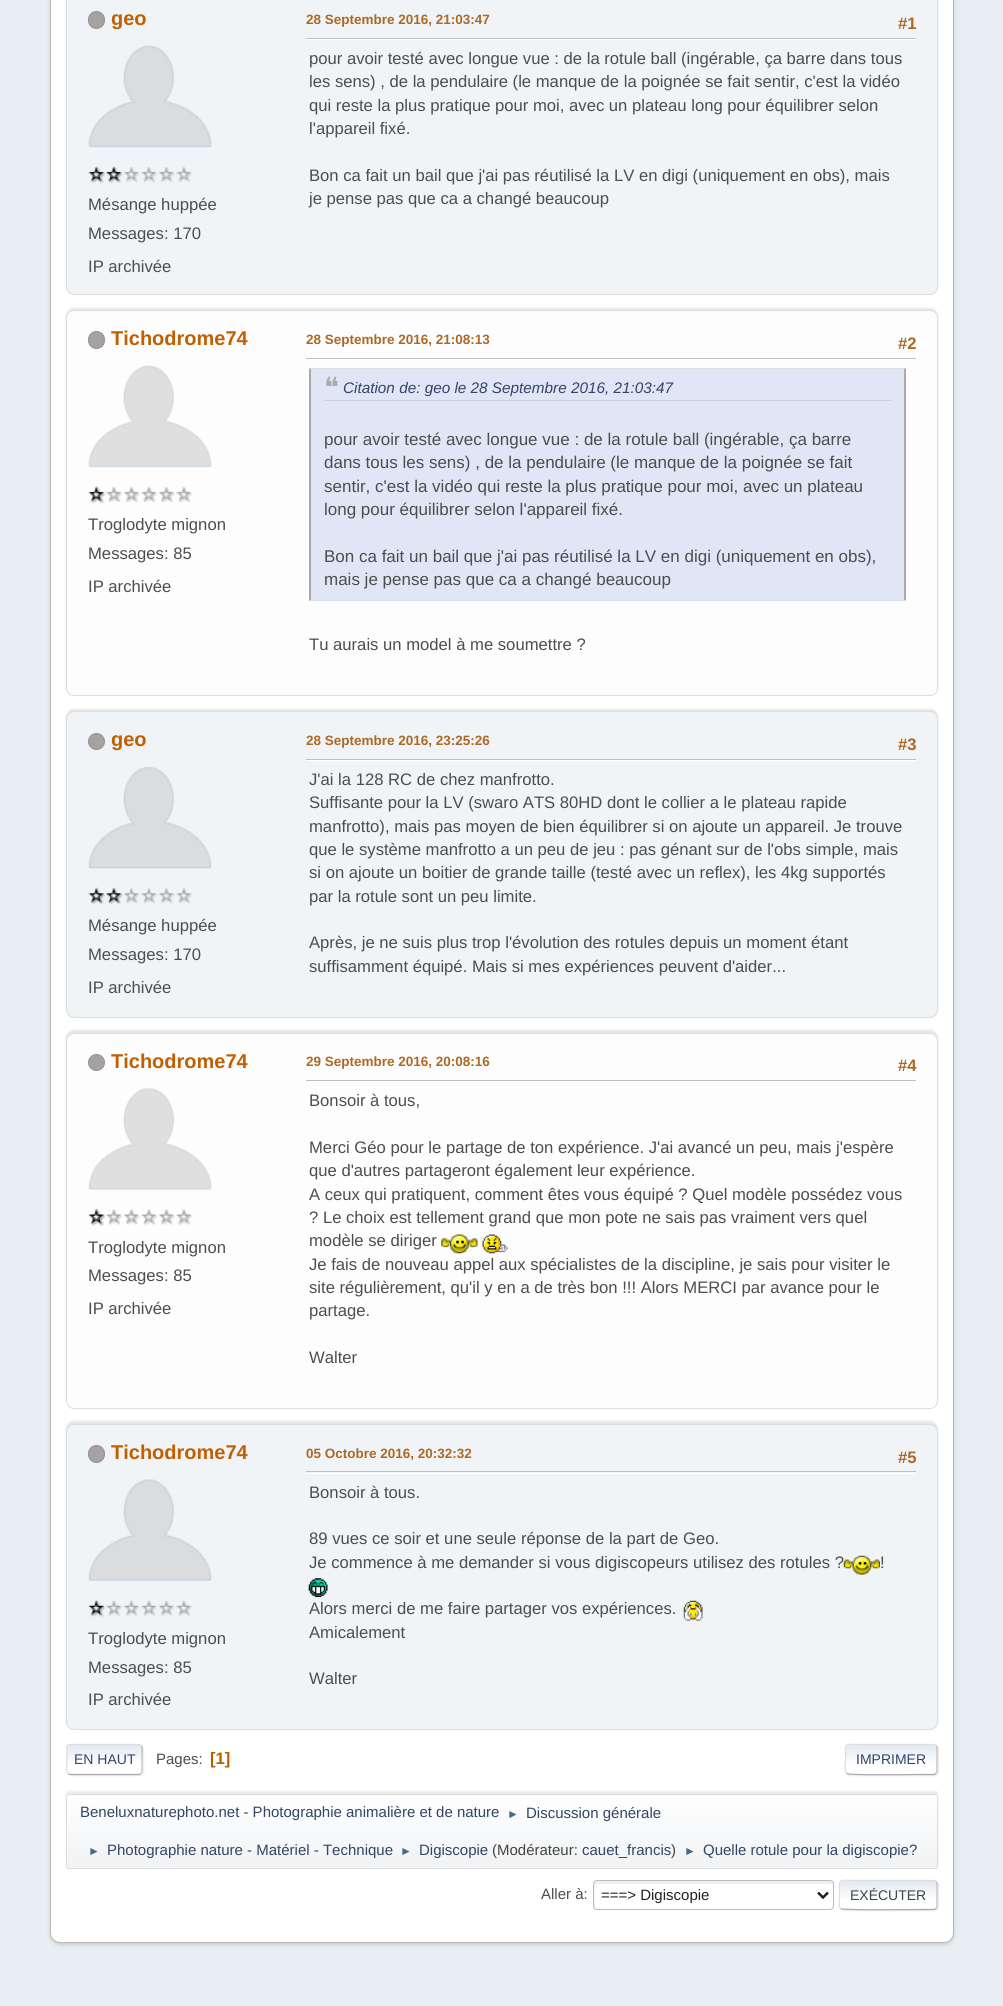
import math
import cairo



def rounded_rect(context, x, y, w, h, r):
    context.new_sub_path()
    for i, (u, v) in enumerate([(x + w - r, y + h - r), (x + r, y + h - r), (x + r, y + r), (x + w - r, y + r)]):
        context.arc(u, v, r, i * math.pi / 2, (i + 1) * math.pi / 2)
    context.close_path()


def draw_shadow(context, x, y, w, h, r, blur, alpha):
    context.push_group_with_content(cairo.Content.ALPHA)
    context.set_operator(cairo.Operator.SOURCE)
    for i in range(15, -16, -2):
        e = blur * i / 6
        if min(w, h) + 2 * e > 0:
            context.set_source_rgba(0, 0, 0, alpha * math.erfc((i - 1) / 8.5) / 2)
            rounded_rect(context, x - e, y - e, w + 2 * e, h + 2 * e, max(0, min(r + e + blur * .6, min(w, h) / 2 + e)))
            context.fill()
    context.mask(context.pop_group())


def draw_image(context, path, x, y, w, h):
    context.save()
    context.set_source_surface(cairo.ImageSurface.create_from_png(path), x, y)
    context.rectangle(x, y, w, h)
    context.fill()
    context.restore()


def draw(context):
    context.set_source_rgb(233 / 255, 238 / 255, 242 / 255)
    context.paint()
    context.set_source_rgb(0, 0, 0)
    draw_shadow(context, 50, -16, 904, 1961, 10, 2, 0.14)
    context.set_source_rgb(1, 1, 1)
    rounded_rect(context, 50.5, -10.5, 903, 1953, 9.5)
    context.fill_preserve()
    context.set_source_rgb(184 / 255, 184 / 255, 184 / 255)
    context.set_line_width(1)
    context.stroke()
    context.set_source_rgb(0, 0, 0)
    draw_shadow(context, 66, -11, 872, 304, 8, 1, 0.1)
    context.set_source_rgb(240 / 255, 244 / 255, 247 / 255)
    rounded_rect(context, 66.5, -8.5, 871, 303, 7.5)
    context.fill_preserve()
    context.set_source_rgb(221 / 255, 221 / 255, 221 / 255)
    context.stroke()
    context.set_source_rgb(167 / 255, 162 / 255, 162 / 255)
    rounded_rect(context, 88.5, 11.5, 16, 17, 8)
    context.fill_preserve()
    context.set_source_rgb(150 / 255, 146 / 255, 146 / 255)
    context.stroke()
    draw_image(context, "images/1.png", 88, 45, 124, 103)
    draw_image(context, "images/2.png", 88, 165, 105, 19)
    context.set_source_rgb(1, 1, 1)
    context.rectangle(306, 39, 610, 1)
    context.fill()
    context.set_source_rgb(191 / 255, 191 / 255, 191 / 255)
    context.rectangle(306, 38, 610, 1)
    context.fill()
    context.set_source_rgb(0, 0, 0)
    draw_shadow(context, 66, 308, 872, 386, 8, 1, 0.1)
    context.set_source_rgb(253 / 255, 253 / 255, 253 / 255)
    rounded_rect(context, 66.5, 310.5, 871, 385, 7.5)
    context.fill_preserve()
    context.set_source_rgb(221 / 255, 221 / 255, 221 / 255)
    context.stroke()
    context.set_source_rgb(167 / 255, 162 / 255, 162 / 255)
    rounded_rect(context, 88.5, 331.5, 16, 17, 8)
    context.fill_preserve()
    context.set_source_rgb(150 / 255, 146 / 255, 146 / 255)
    context.stroke()
    draw_image(context, "images/3.png", 88, 365, 124, 103)
    draw_image(context, "images/4.png", 88, 485, 105, 19)
    context.set_source_rgb(191 / 255, 191 / 255, 191 / 255)
    context.rectangle(306, 358, 610, 1)
    context.fill()
    context.set_source_rgb(224 / 255, 230 / 255, 246 / 255)
    context.rectangle(311, 369, 593, 231)
    context.fill()
    context.set_source_rgb(214 / 255, 223 / 255, 226 / 255)
    context.new_path()
    context.move_to(309, 368)
    context.line_to(906, 368)
    context.line_to(904, 369)
    context.line_to(311, 369)
    context.close_path()
    context.fill()
    context.set_source_rgb(170 / 255, 170 / 255, 170 / 255)
    context.new_path()
    context.move_to(906, 368)
    context.line_to(906, 601)
    context.line_to(904, 600)
    context.line_to(904, 369)
    context.close_path()
    context.fill()
    context.set_source_rgb(214 / 255, 223 / 255, 226 / 255)
    context.new_path()
    context.move_to(906, 601)
    context.line_to(309, 601)
    context.line_to(311, 600)
    context.line_to(904, 600)
    context.close_path()
    context.fill()
    context.set_source_rgb(170 / 255, 170 / 255, 170 / 255)
    context.new_path()
    context.move_to(309, 601)
    context.line_to(309, 368)
    context.line_to(311, 369)
    context.line_to(311, 600)
    context.close_path()
    context.fill()
    context.set_source_rgb(202 / 255, 207 / 255, 221 / 255)
    context.rectangle(324, 400, 567, 1)
    context.fill()
    context.set_source_rgb(0, 0, 0)
    draw_shadow(context, 66, 709, 872, 306, 8, 1, 0.1)
    context.set_source_rgb(240 / 255, 244 / 255, 247 / 255)
    rounded_rect(context, 66.5, 711.5, 871, 306, 7.5)
    context.fill_preserve()
    context.set_source_rgb(221 / 255, 221 / 255, 221 / 255)
    context.stroke()
    context.set_source_rgb(167 / 255, 162 / 255, 162 / 255)
    context.arc(96.5, 741.5, 8, 0, 2 * math.pi)
    context.fill_preserve()
    context.set_source_rgb(150 / 255, 146 / 255, 146 / 255)
    context.stroke()
    draw_image(context, "images/5.png", 88, 767, 124, 102)
    draw_image(context, "images/6.png", 88, 887, 105, 18)
    context.set_source_rgb(1, 1, 1)
    context.rectangle(306, 760, 610, 1)
    context.fill()
    context.set_source_rgb(191 / 255, 191 / 255, 191 / 255)
    context.rectangle(306, 759, 610, 1)
    context.fill()
    context.set_source_rgb(0, 0, 0)
    draw_shadow(context, 66, 1030, 872, 376, 8, 1, 0.1)
    context.set_source_rgb(253 / 255, 253 / 255, 253 / 255)
    rounded_rect(context, 66.5, 1033.5, 871, 375, 7.5)
    context.fill_preserve()
    context.set_source_rgb(221 / 255, 221 / 255, 221 / 255)
    context.stroke()
    context.set_source_rgb(167 / 255, 162 / 255, 162 / 255)
    context.arc(96.5, 1062.5, 8, 0, 2 * math.pi)
    context.fill_preserve()
    context.set_source_rgb(150 / 255, 146 / 255, 146 / 255)
    context.stroke()
    draw_image(context, "images/7.png", 88, 1088, 124, 102)
    draw_image(context, "images/8.png", 88, 1208, 105, 18)
    context.set_source_rgb(191 / 255, 191 / 255, 191 / 255)
    context.rectangle(306, 1080, 610, 1)
    context.fill()
    draw_image(context, "images/9.png", 441, 1234, 37, 20)
    draw_image(context, "images/10.png", 482, 1234, 26, 20)
    context.set_source_rgb(0, 0, 0)
    draw_shadow(context, 66, 1421, 872, 307, 8, 1, 0.1)
    context.set_source_rgb(240 / 255, 244 / 255, 247 / 255)
    rounded_rect(context, 66.5, 1424.5, 871, 305, 7.5)
    context.fill_preserve()
    context.set_source_rgb(221 / 255, 221 / 255, 221 / 255)
    context.stroke()
    context.set_source_rgb(167 / 255, 162 / 255, 162 / 255)
    rounded_rect(context, 88.5, 1445.5, 16, 17, 8)
    context.fill_preserve()
    context.set_source_rgb(150 / 255, 146 / 255, 146 / 255)
    context.stroke()
    draw_image(context, "images/11.png", 88, 1479, 124, 102)
    draw_image(context, "images/12.png", 88, 1599, 105, 18)
    context.set_source_rgb(1, 1, 1)
    context.rectangle(306, 1473, 610, 1)
    context.fill()
    context.set_source_rgb(191 / 255, 191 / 255, 191 / 255)
    context.rectangle(306, 1471, 610, 1)
    context.fill()
    draw_image(context, "images/14.png", 308, 1578, 20, 19)
    draw_image(context, "images/15.png", 683, 1600, 20, 21)
    context.set_source_rgb(221 / 255, 221 / 255, 221 / 255)
    draw_shadow(context, 68, 1745, 76, 31, 4, 0.5, 0.57)
    context.set_source_rgb(1, 1, 1)
    rounded_rect(context, 66, 1744, 77, 31, 4)
    context.fill()
    context.save()
    rounded_rect(context, 66, 1744, 77, 31, 4)
    context.clip()
    gradient = cairo.LinearGradient(104, 1745, 104, 1774)
    gradient.add_color_stop_rgba(0, 226 / 255, 233 / 255, 243 / 255, 1)
    gradient.add_color_stop_rgba(0.7, 1, 1, 1, 1)
    context.set_source(gradient)
    context.rectangle(66, 1745, 77, 29)
    context.fill()
    gradient = cairo.LinearGradient(104, 1774, 104, 1803)
    gradient.add_color_stop_rgba(0, 226 / 255, 233 / 255, 243 / 255, 1)
    gradient.add_color_stop_rgba(0.7, 1, 1, 1, 1)
    context.set_source(gradient)
    context.rectangle(66, 1774, 77, 1)
    context.fill()
    context.restore()
    context.new_path()
    context.move_to(141, 1745.5)
    context.curve_to(141.5, 1746, 142, 1746.5, 142, 1747.5)
    context.line_to(142, 1771)
    context.curve_to(142, 1772, 141.5, 1773, 141, 1773.5)
    context.set_source_rgb(187 / 255, 187 / 255, 187 / 255)
    context.set_line_width(1.2)
    context.stroke()
    context.new_path()
    context.move_to(141, 1773.5)
    context.line_to(139, 1774.5)
    context.line_to(69.5, 1774.5)
    context.line_to(68, 1773.5)
    context.set_source_rgb(170 / 255, 170 / 255, 170 / 255)
    context.stroke()
    context.new_path()
    context.move_to(68, 1773.5)
    context.curve_to(65.5, 1771.5, 67, 1762, 67, 1759.5)
    context.curve_to(67, 1742, 64, 1744.5, 81.5, 1744.5)
    context.line_to(139, 1744.5)
    context.line_to(141, 1745.5)
    context.set_source_rgb(221 / 255, 221 / 255, 221 / 255)
    context.stroke()
    context.set_source_rgb(221 / 255, 221 / 255, 221 / 255)
    draw_shadow(context, 846, 1745, 93, 31, 4, 0.5, 0.57)
    context.set_source_rgb(1, 1, 1)
    rounded_rect(context, 845, 1744, 93, 31, 4)
    context.fill()
    context.save()
    rounded_rect(context, 845, 1744, 93, 31, 4)
    context.clip()
    gradient = cairo.LinearGradient(891, 1745, 891, 1774)
    gradient.add_color_stop_rgba(0, 226 / 255, 233 / 255, 243 / 255, 1)
    gradient.add_color_stop_rgba(0.7, 1, 1, 1, 1)
    context.set_source(gradient)
    context.rectangle(845, 1745, 93, 29)
    context.fill()
    gradient = cairo.LinearGradient(891, 1774, 891, 1803)
    gradient.add_color_stop_rgba(0, 226 / 255, 233 / 255, 243 / 255, 1)
    gradient.add_color_stop_rgba(0.7, 1, 1, 1, 1)
    context.set_source(gradient)
    context.rectangle(845, 1774, 93, 1)
    context.fill()
    context.restore()
    context.new_path()
    context.move_to(936, 1745.5)
    context.curve_to(936.5, 1746, 937, 1746.5, 937, 1747.5)
    context.line_to(937, 1771)
    context.curve_to(937, 1772, 936.5, 1773, 936, 1773.5)
    context.set_source_rgb(187 / 255, 187 / 255, 187 / 255)
    context.stroke()
    context.new_path()
    context.move_to(936, 1773.5)
    context.line_to(934, 1774.5)
    context.line_to(919.5, 1774.5)
    context.curve_to(911.5, 1774.5, 849, 1775.5, 847, 1773.5)
    context.line_to(846.5, 1773.5)
    context.set_source_rgb(170 / 255, 170 / 255, 170 / 255)
    context.stroke()
    context.new_path()
    context.move_to(846.5, 1773.5)
    context.curve_to(844.5, 1771.5, 845.5, 1762, 845.5, 1759.5)
    context.curve_to(845.5, 1741, 843, 1744.5, 863, 1744.5)
    context.line_to(934, 1744.5)
    context.line_to(936, 1745.5)
    context.set_source_rgb(221 / 255, 221 / 255, 221 / 255)
    context.stroke()
    context.set_source_rgb(0, 0, 0)
    draw_shadow(context, 66, 1791, 872, 75, 2.5, 1, 0.08)
    context.save()
    rounded_rect(context, 66, 1794, 872, 75, 2.5)
    context.clip()
    gradient = cairo.LinearGradient(502, 1795, 502, 1868)
    gradient.add_color_stop_rgba(0, 1, 1, 1, 1)
    gradient.add_color_stop_rgba(0.95, 241 / 255, 243 / 255, 245 / 255, 1)
    context.set_source(gradient)
    context.rectangle(66, 1795, 872, 73)
    context.fill()
    context.restore()
    rounded_rect(context, 66.5, 1794.5, 871, 74, 2)
    context.set_source_rgb(221 / 255, 221 / 255, 221 / 255)
    context.set_line_width(1)
    context.stroke()
    context.set_source_rgb(236 / 255, 241 / 255, 248 / 255)
    context.new_path()
    context.move_to(598, 1884)
    context.line_to(831, 1884)
    context.line_to(833, 1884)
    context.curve_to(833, 1882, 832, 1881, 830, 1881)
    context.line_to(596, 1881)
    context.curve_to(595, 1881, 594, 1882, 594, 1884)
    context.line_to(594, 1906)
    context.curve_to(594, 1907, 594, 1908, 595, 1909)
    context.line_to(595, 1886)
    context.curve_to(595, 1885, 596, 1884, 598, 1884)
    context.close_path()
    context.fill()
    rounded_rect(context, 593.5, 1880.5, 240, 29, 3.5)
    context.set_source_rgb(187 / 255, 187 / 255, 187 / 255)
    context.stroke()
    context.new_path()
    context.move_to(818, 1892.5)
    context.line_to(823, 1897.5)
    context.line_to(828, 1892.5)
    context.set_source_rgb(34 / 255, 34 / 255, 34 / 255)
    context.set_line_width(2.5)
    context.stroke()
    context.set_source_rgb(221 / 255, 221 / 255, 221 / 255)
    draw_shadow(context, 840, 1881, 99, 30, 4, 0.5, 0.57)
    context.set_source_rgb(1, 1, 1)
    rounded_rect(context, 839, 1880, 99, 30, 4)
    context.fill()
    context.save()
    rounded_rect(context, 839, 1880, 99, 30, 4)
    context.clip()
    gradient = cairo.LinearGradient(888, 1881, 888, 1909)
    gradient.add_color_stop_rgba(0, 226 / 255, 233 / 255, 243 / 255, 1)
    gradient.add_color_stop_rgba(0.7, 1, 1, 1, 1)
    context.set_source(gradient)
    context.rectangle(839, 1881, 99, 28)
    context.fill()
    gradient = cairo.LinearGradient(888, 1909, 888, 1936)
    gradient.add_color_stop_rgba(0, 226 / 255, 233 / 255, 243 / 255, 1)
    gradient.add_color_stop_rgba(0.7, 1, 1, 1, 1)
    context.set_source(gradient)
    context.rectangle(839, 1909, 99, 1)
    context.fill()
    context.restore()
    context.new_path()
    context.move_to(936, 1881.5)
    context.curve_to(936.5, 1882, 937, 1883, 937, 1884)
    context.line_to(937, 1906)
    context.curve_to(937, 1907, 936.5, 1908, 936, 1908.5)
    context.set_source_rgb(187 / 255, 187 / 255, 187 / 255)
    context.set_line_width(1.2)
    context.stroke()
    context.new_path()
    context.move_to(936, 1908.5)
    context.line_to(934, 1909.5)
    context.line_to(918.5, 1909.5)
    context.curve_to(910, 1909.5, 842.5, 1910.5, 840.5, 1908.5)
    context.set_source_rgb(170 / 255, 170 / 255, 170 / 255)
    context.stroke()
    context.new_path()
    context.move_to(840.5, 1908.5)
    context.curve_to(838, 1906.5, 839.5, 1897.5, 839.5, 1895)
    context.curve_to(839.5, 1877, 837.5, 1880.5, 857.5, 1880.5)
    context.line_to(934, 1880.5)
    context.line_to(936, 1881.5)
    context.set_source_rgb(221 / 255, 221 / 255, 221 / 255)
    context.stroke()
    context.select_font_face("Liberation Sans", cairo.FontSlant.NORMAL, cairo.FontWeight.BOLD)
    context.set_font_size(20)
    context.set_source_rgb(192 / 255, 96 / 255, 2 / 255)
    context.move_to(111, 25)
    context.show_text("geo")
    context.select_font_face("Liberation Sans")
    context.set_font_size(16.65)
    context.set_source_rgb(77 / 255, 77 / 255, 77 / 255)
    context.move_to(88, 210)
    context.show_text("Mésange huppée")
    context.move_to(88, 239)
    context.show_text("Messages: 170")
    context.move_to(88, 272)
    context.show_text("IP archivée")
    context.select_font_face("Liberation Sans", cairo.FontSlant.NORMAL, cairo.FontWeight.BOLD)
    context.set_font_size(13.5)
    context.set_source_rgb(173 / 255, 104 / 255, 37 / 255)
    context.move_to(306, 24)
    context.show_text("28 Septembre 2016, 21:03:47")
    context.set_font_size(16.65)
    context.move_to(898, 29)
    context.show_text("#1")
    context.select_font_face("Liberation Sans")
    context.set_source_rgb(77 / 255, 77 / 255, 77 / 255)
    context.move_to(309, 64)
    context.show_text("pour avoir testé avec longue vue : de la rotule ball (ingérable, ça barre dans tous")
    context.move_to(309, 87)
    context.show_text("les sens) , de la pendulaire (le manque de la poignée se fait sentir, c'est la vidéo")
    context.move_to(309, 111)
    context.show_text("qui reste la plus pratique pour moi, avec un plateau long pour équilibrer selon")
    context.move_to(309, 134)
    context.show_text("l'appareil fixé.")
    context.move_to(309, 181)
    context.show_text("Bon ca fait un bail que j'ai pas réutilisé la LV en digi (uniquement en obs), mais")
    context.move_to(309, 204)
    context.show_text("je pense pas que ca a changé beaucoup")
    context.select_font_face("Liberation Sans", cairo.FontSlant.NORMAL, cairo.FontWeight.BOLD)
    context.set_font_size(20)
    context.set_source_rgb(192 / 255, 96 / 255, 2 / 255)
    context.move_to(111, 345)
    context.show_text("Tichodrome74")
    context.select_font_face("Liberation Sans")
    context.set_font_size(16.65)
    context.set_source_rgb(77 / 255, 77 / 255, 77 / 255)
    context.move_to(88, 530)
    context.show_text("Troglodyte mignon")
    context.move_to(88, 559)
    context.show_text("Messages: 85")
    context.move_to(88, 592)
    context.show_text("IP archivée")
    context.select_font_face("Liberation Sans", cairo.FontSlant.NORMAL, cairo.FontWeight.BOLD)
    context.set_font_size(13.5)
    context.set_source_rgb(173 / 255, 104 / 255, 37 / 255)
    context.move_to(306, 344)
    context.show_text("28 Septembre 2016, 21:08:13")
    context.set_font_size(16.65)
    context.move_to(898, 349)
    context.show_text("#2")
    context.select_font_face("DejaVu Sans")
    context.set_font_size(28)
    context.set_source_rgb(170 / 255, 170 / 255, 170 / 255)
    context.move_to(324, 397)
    context.show_text("❝")
    context.select_font_face("Liberation Sans", cairo.FontSlant.ITALIC)
    context.set_font_size(15.3)
    context.set_source_rgb(51 / 255, 68 / 255, 102 / 255)
    context.move_to(343, 393)
    context.show_text("Citation de: geo le 28 Septembre 2016, 21:03:47")
    context.select_font_face("Liberation Sans")
    context.set_font_size(17)
    context.set_source_rgb(77 / 255, 77 / 255, 77 / 255)
    context.move_to(324, 445)
    context.show_text("pour avoir testé avec longue vue : de la rotule ball (ingérable, ça barre")
    context.move_to(324, 468)
    context.show_text("dans tous les sens) , de la pendulaire (le manque de la poignée se fait")
    context.move_to(324, 492)
    context.show_text("sentir, c'est la vidéo qui reste la plus pratique pour moi, avec un plateau")
    context.move_to(324, 515)
    context.show_text("long pour équilibrer selon l'appareil fixé.")
    context.move_to(324, 562)
    context.show_text("Bon ca fait un bail que j'ai pas réutilisé la LV en digi (uniquement en obs),")
    context.move_to(324, 585)
    context.show_text("mais je pense pas que ca a changé beaucoup")
    context.set_font_size(16.65)
    context.move_to(309, 650)
    context.show_text("Tu aurais un model à me soumettre ?")
    context.select_font_face("Liberation Sans", cairo.FontSlant.NORMAL, cairo.FontWeight.BOLD)
    context.set_font_size(20)
    context.set_source_rgb(192 / 255, 96 / 255, 2 / 255)
    context.move_to(111, 746)
    context.show_text("geo")
    context.select_font_face("Liberation Sans")
    context.set_font_size(16.65)
    context.set_source_rgb(77 / 255, 77 / 255, 77 / 255)
    context.move_to(88, 931)
    context.show_text("Mésange huppée")
    context.move_to(88, 960)
    context.show_text("Messages: 170")
    context.move_to(88, 993)
    context.show_text("IP archivée")
    context.select_font_face("Liberation Sans", cairo.FontSlant.NORMAL, cairo.FontWeight.BOLD)
    context.set_font_size(13.5)
    context.set_source_rgb(173 / 255, 104 / 255, 37 / 255)
    context.move_to(306, 745)
    context.show_text("28 Septembre 2016, 23:25:26")
    context.set_font_size(16.65)
    context.move_to(898, 750)
    context.show_text("#3")
    context.select_font_face("Liberation Sans")
    context.set_source_rgb(77 / 255, 77 / 255, 77 / 255)
    context.move_to(309, 785)
    context.show_text("J'ai la 128 RC de chez manfrotto.")
    context.move_to(309, 808)
    context.show_text("Suffisante pour la LV (swaro ATS 80HD dont le collier a le plateau rapide")
    context.move_to(309, 832)
    context.show_text("manfrotto), mais pas moyen de bien équilibrer si on ajoute un appareil. Je trouve")
    context.move_to(309, 855)
    context.show_text("que le système manfrotto a un peu de jeu : pas génant sur de l'obs simple, mais")
    context.move_to(309, 878)
    context.show_text("si on ajoute un boitier de grande taille (testé avec un reflex), les 4kg supportés")
    context.move_to(309, 902)
    context.show_text("par la rotule sont un peu limite.")
    context.move_to(309, 948)
    context.show_text("Après, je ne suis plus trop l'évolution des rotules depuis un moment étant")
    context.move_to(309, 972)
    context.show_text("suffisamment équipé. Mais si mes expériences peuvent d'aider...")
    context.select_font_face("Liberation Sans", cairo.FontSlant.NORMAL, cairo.FontWeight.BOLD)
    context.set_font_size(20)
    context.set_source_rgb(192 / 255, 96 / 255, 2 / 255)
    context.move_to(111, 1068)
    context.show_text("Tichodrome74")
    context.select_font_face("Liberation Sans")
    context.set_font_size(16.65)
    context.set_source_rgb(77 / 255, 77 / 255, 77 / 255)
    context.move_to(88, 1253)
    context.show_text("Troglodyte mignon")
    context.move_to(88, 1281)
    context.show_text("Messages: 85")
    context.move_to(88, 1314)
    context.show_text("IP archivée")
    context.select_font_face("Liberation Sans", cairo.FontSlant.NORMAL, cairo.FontWeight.BOLD)
    context.set_font_size(13.5)
    context.set_source_rgb(173 / 255, 104 / 255, 37 / 255)
    context.move_to(306, 1066)
    context.show_text("29 Septembre 2016, 20:08:16")
    context.set_font_size(16.65)
    context.move_to(898, 1071)
    context.show_text("#4")
    context.select_font_face("Liberation Sans")
    context.set_source_rgb(77 / 255, 77 / 255, 77 / 255)
    context.move_to(309, 1106)
    context.show_text("Bonsoir à tous,")
    context.move_to(309, 1153)
    context.show_text("Merci Géo pour le partage de ton expérience. J'ai avancé un peu, mais j'espère")
    context.move_to(309, 1176)
    context.show_text("que d'autres partageront également leur expérience.")
    context.move_to(309, 1200)
    context.show_text("A ceux qui pratiquent, comment êtes vous équipé ? Quel modèle possédez vous")
    context.move_to(309, 1223)
    context.show_text("? Le choix est tellement grand que mon pote ne sais pas vraiment vers quel")
    context.move_to(309, 1246)
    context.show_text("modèle se diriger")
    context.move_to(309, 1270)
    context.show_text("Je fais de nouveau appel aux spécialistes de la discipline, je sais pour visiter le")
    context.move_to(309, 1293)
    context.show_text("site régulièrement, qu'il y en a de très bon !!! Alors MERCI par avance pour le")
    context.move_to(309, 1316)
    context.show_text("partage.")
    context.move_to(309, 1363)
    context.show_text("Walter")
    context.select_font_face("Liberation Sans", cairo.FontSlant.NORMAL, cairo.FontWeight.BOLD)
    context.set_font_size(20)
    context.set_source_rgb(192 / 255, 96 / 255, 2 / 255)
    context.move_to(111, 1459)
    context.show_text("Tichodrome74")
    context.select_font_face("Liberation Sans")
    context.set_font_size(16.65)
    context.set_source_rgb(77 / 255, 77 / 255, 77 / 255)
    context.move_to(88, 1644)
    context.show_text("Troglodyte mignon")
    context.move_to(88, 1673)
    context.show_text("Messages: 85")
    context.move_to(88, 1705)
    context.show_text("IP archivée")
    context.select_font_face("Liberation Sans", cairo.FontSlant.NORMAL, cairo.FontWeight.BOLD)
    context.set_font_size(13.5)
    context.set_source_rgb(173 / 255, 104 / 255, 37 / 255)
    context.move_to(306, 1458)
    context.show_text("05 Octobre 2016, 20:32:32")
    context.set_font_size(16.65)
    context.move_to(898, 1463)
    context.show_text("#5")
    context.select_font_face("Liberation Sans")
    context.set_source_rgb(77 / 255, 77 / 255, 77 / 255)
    context.move_to(309, 1498)
    context.show_text("Bonsoir à tous.")
    context.move_to(309, 1544)
    context.show_text("89 vues ce soir et une seule réponse de la part de Geo.")
    context.move_to(309, 1568)
    context.show_text("Je commence à me demander si vous digiscopeurs utilisez des rotules ?")
    draw_image(context, "images/13.png", 843, 1555, 37, 20)
    context.move_to(880, 1568)
    context.show_text("!")
    context.move_to(309, 1614)
    context.show_text("Alors merci de me faire partager vos expériences.")
    context.move_to(309, 1638)
    context.show_text("Amicalement")
    context.move_to(309, 1684)
    context.show_text("Walter")
    context.set_font_size(14)
    context.set_source_rgb(51 / 255, 68 / 255, 102 / 255)
    context.move_to(74, 1764)
    context.show_text("EN HAUT")
    context.set_font_size(15)
    context.set_source_rgb(77 / 255, 77 / 255, 77 / 255)
    context.move_to(156, 1764)
    context.show_text("Pages:")
    context.select_font_face("Liberation Sans", cairo.FontSlant.NORMAL, cairo.FontWeight.BOLD)
    context.set_font_size(16.65)
    context.set_source_rgb(180 / 255, 97 / 255, 0)
    context.move_to(210, 1764)
    context.show_text("[1]")
    context.select_font_face("Liberation Sans")
    context.set_font_size(14)
    context.set_source_rgb(51 / 255, 68 / 255, 102 / 255)
    context.move_to(856, 1764)
    context.show_text("IMPRIMER")
    context.set_font_size(15)
    context.move_to(80, 1817)
    context.show_text("Beneluxnaturephoto.net - Photographie animalière et de nature")
    context.set_font_size(12)
    context.set_source_rgb(63 / 255, 107 / 255, 140 / 255)
    context.move_to(507, 1818)
    context.show_text("►")
    context.set_font_size(15)
    context.set_source_rgb(51 / 255, 68 / 255, 102 / 255)
    context.move_to(526, 1818)
    context.show_text("Discussion générale")
    context.set_font_size(12)
    context.set_source_rgb(63 / 255, 107 / 255, 140 / 255)
    context.move_to(88, 1855)
    context.show_text("►")
    context.set_font_size(15)
    context.set_source_rgb(51 / 255, 68 / 255, 102 / 255)
    context.move_to(107, 1855)
    context.show_text("Photographie nature - Matériel - Technique")
    context.set_font_size(12)
    context.set_source_rgb(63 / 255, 107 / 255, 140 / 255)
    context.move_to(400, 1855)
    context.show_text("►")
    context.set_font_size(15)
    context.set_source_rgb(51 / 255, 68 / 255, 102 / 255)
    context.move_to(419, 1855)
    context.show_text("Digiscopie")
    context.set_source_rgb(68 / 255, 68 / 255, 68 / 255)
    context.move_to(492, 1855)
    context.show_text("(Modérateur:")
    context.set_source_rgb(51 / 255, 68 / 255, 102 / 255)
    context.move_to(582, 1855)
    context.show_text("cauet_francis")
    context.set_source_rgb(68 / 255, 68 / 255, 68 / 255)
    context.move_to(671, 1855)
    context.show_text(")")
    context.set_font_size(12)
    context.set_source_rgb(63 / 255, 107 / 255, 140 / 255)
    context.move_to(684, 1855)
    context.show_text("►")
    context.set_font_size(15)
    context.set_source_rgb(51 / 255, 68 / 255, 102 / 255)
    context.move_to(703, 1855)
    context.show_text("Quelle rotule pour la digiscopie?")
    context.set_source_rgb(77 / 255, 77 / 255, 77 / 255)
    context.move_to(541, 1899)
    context.show_text("Aller à:")
    context.set_source_rgb(34 / 255, 34 / 255, 34 / 255)
    context.move_to(601, 1900)
    context.show_text("===> Digiscopie")
    context.set_font_size(14)
    context.set_source_rgb(68 / 255, 68 / 255, 68 / 255)
    context.move_to(850, 1900)
    context.show_text("EXÉCUTER")


surface = cairo.ImageSurface(cairo.Format.RGB24, 1003, 2006)
context = cairo.Context(surface)
options = cairo.FontOptions()
options.set_hint_metrics(cairo.HintMetrics.OFF)
options.set_hint_style(cairo.HintStyle.NONE)
context.set_font_options(options)
context.set_miter_limit(4)
draw(context)
surface.write_to_png("out.png")
